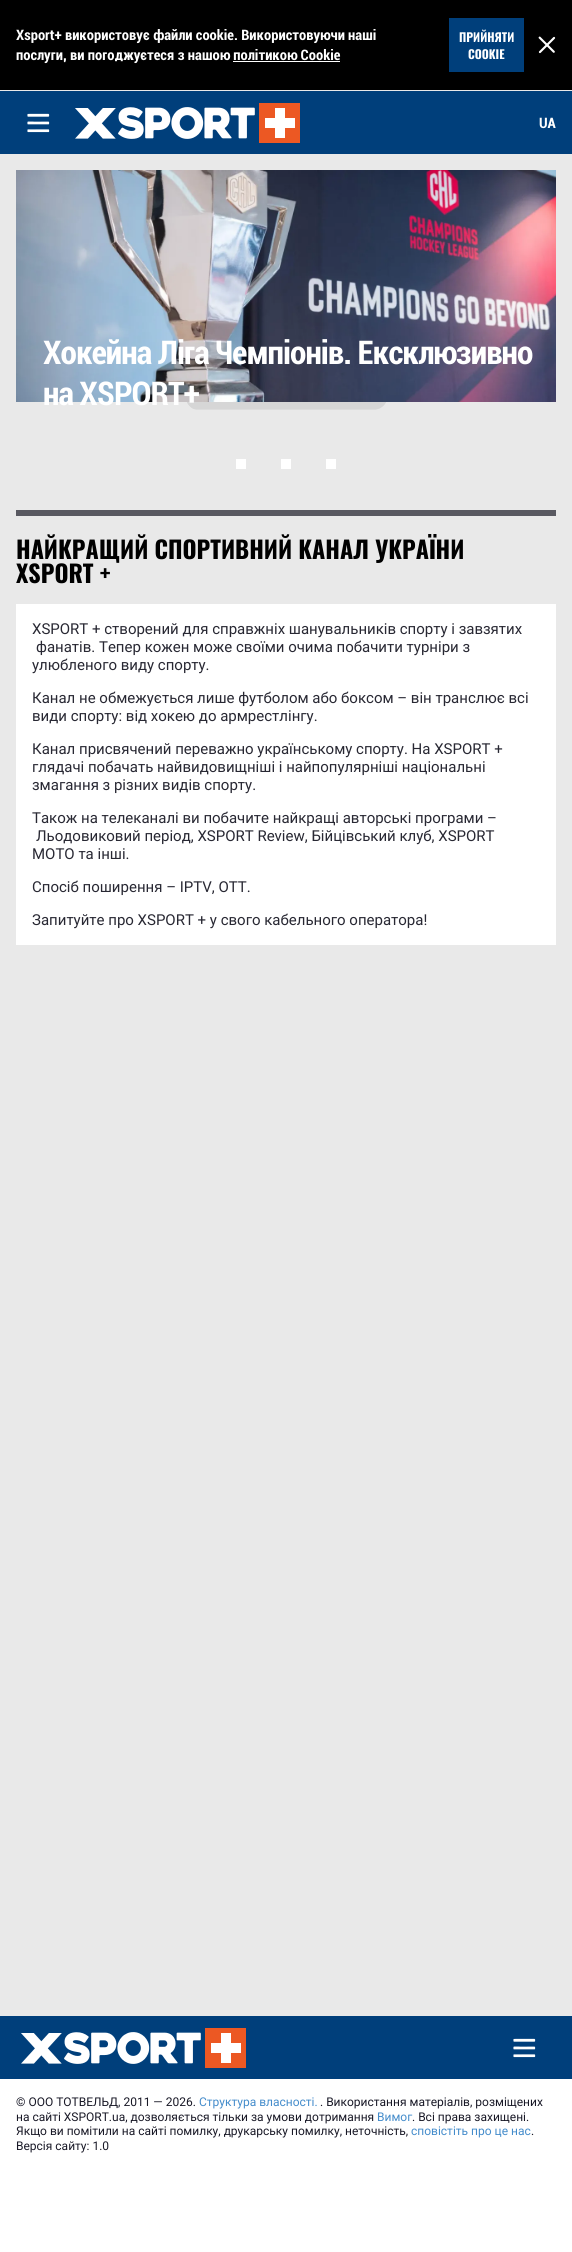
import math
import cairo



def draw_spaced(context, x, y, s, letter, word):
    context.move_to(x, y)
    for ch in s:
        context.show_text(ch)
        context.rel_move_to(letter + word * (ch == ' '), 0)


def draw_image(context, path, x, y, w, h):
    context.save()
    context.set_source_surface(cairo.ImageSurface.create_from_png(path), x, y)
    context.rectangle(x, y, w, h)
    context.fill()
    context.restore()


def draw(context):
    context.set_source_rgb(233 / 255, 233 / 255, 233 / 255)
    context.paint()
    context.set_source_rgb(0, 0, 0)
    context.rectangle(0, 0, 572, 90)
    context.fill()
    context.set_source_rgb(1, 1, 1)
    context.rectangle(233, 61, 107, 1)
    context.fill()
    context.set_source_rgb(0, 63 / 255, 123 / 255)
    context.rectangle(449, 18, 75, 54)
    context.fill()
    draw_image(context, "images/1.png", 538, 36, 18, 18)
    context.rectangle(0, 91, 572, 63)
    context.fill()
    draw_image(context, "images/2.png", 27, 113, 23, 20)
    draw_image(context, "images/3.png", 75, 103, 225, 40)
    draw_image(context, "images/4.png", 187, 402, 199, 8)
    draw_image(context, "images/5.png", 16, 170, 540, 232)
    context.set_source_rgb(1, 1, 1)
    context.rectangle(236, 459, 10, 10)
    context.fill()
    context.rectangle(281, 459, 10, 10)
    context.fill()
    context.rectangle(326, 459, 10, 10)
    context.fill()
    context.set_source_rgb(89 / 255, 89 / 255, 97 / 255)
    context.rectangle(16, 510, 540, 6)
    context.fill()
    context.set_source_rgb(1, 1, 1)
    context.rectangle(16, 604, 540, 341)
    context.fill()
    context.rectangle(0, 2079, 572, 173)
    context.fill()
    context.set_source_rgb(0, 63 / 255, 123 / 255)
    context.rectangle(0, 2016, 572, 63)
    context.fill()
    draw_image(context, "images/3.png", 21, 2028, 225, 40)
    draw_image(context, "images/2.png", 513, 2038, 23, 20)
    context.select_font_face("Roboto", cairo.FontSlant.NORMAL, cairo.FontWeight.BOLD)
    context.set_font_size(15)
    context.set_source_rgb(1, 1, 1)
    context.move_to(16, 40)
    context.show_text("Xsport+ використовує файли cookie. Використовуючи наші")
    context.move_to(16, 60)
    context.show_text("послуги, ви погоджуєтеся з нашою політикою Cookie")
    context.select_font_face("Oswald", cairo.FontSlant.NORMAL, cairo.FontWeight.BOLD)
    context.set_font_size(12)
    context.move_to(459, 42)
    context.show_text("ПРИЙНЯТИ")
    context.move_to(468, 59)
    context.show_text("COOKIE")
    context.select_font_face("Roboto", cairo.FontSlant.NORMAL, cairo.FontWeight.BOLD)
    context.set_font_size(15)
    context.move_to(539, 128)
    context.show_text("UA")
    context.set_font_size(34)
    draw_spaced(context, 43, 364, "Хокейна Ліга Чемпіонів. Ексклюзивно", -1, 0)
    draw_spaced(context, 43, 405, "на XSPORT+", -1, 0)
    context.select_font_face("Oswald", cairo.FontSlant.NORMAL, cairo.FontWeight.BOLD)
    context.set_font_size(24)
    context.set_source_rgb(0, 0, 0)
    context.move_to(16, 559)
    context.show_text("НАЙКРАЩИЙ СПОРТИВНИЙ КАНАЛ УКРАЇНИ")
    context.move_to(16, 583)
    context.show_text("XSPORT +")
    context.select_font_face("Roboto")
    context.set_font_size(15)
    context.set_source_rgb(40 / 255, 40 / 255, 51 / 255)
    context.move_to(32, 634)
    context.show_text("XSPORT + створений для справжніх шанувальників спорту і завзятих")
    context.move_to(36, 652)
    context.show_text("фанатів. Тепер кожен може своїми очима побачити турніри з")
    context.move_to(32, 670)
    context.show_text("улюбленого виду спорту.")
    context.move_to(32, 703)
    context.show_text("Канал не обмежується лише футболом або боксом – він транслює всі")
    context.move_to(32, 721)
    context.show_text("види спорту: від хокею до армрестлінгу.")
    context.move_to(32, 754)
    context.show_text("Канал присвячений переважно українському спорту. На XSPORT +")
    context.move_to(32, 772)
    context.show_text("глядачі побачать найвидовищніші і найпопулярніші національні")
    context.move_to(32, 790)
    context.show_text("змагання з різних видів спорту.")
    context.move_to(32, 823)
    context.show_text("Також на телеканалі ви побачите найкращі авторські програми –")
    context.move_to(36, 841)
    context.show_text("Льодовиковий період, XSPORT Review, Бійцівський клуб, XSPORT")
    context.move_to(32, 859)
    context.show_text("MOTO та інші.")
    context.move_to(32, 892)
    context.show_text("Спосіб поширення – IPTV, OTT.")
    context.move_to(32, 925)
    context.show_text("Запитуйте про XSPORT + у свого кабельного оператора!")
    context.set_font_size(12)
    context.set_source_rgb(25 / 255, 25 / 255, 39 / 255)
    context.move_to(16, 2106)
    context.show_text("© ООО ТОТВЕЛЬД, 2011 — 2026.")
    context.set_source_rgb(68 / 255, 140 / 255, 203 / 255)
    context.move_to(199, 2106)
    context.show_text("Структура власності.")
    context.set_source_rgb(25 / 255, 25 / 255, 39 / 255)
    context.move_to(320, 2106)
    context.show_text(". Використання матеріалів, розміщених")
    context.move_to(16, 2121)
    context.show_text("на сайті XSPORT.ua, дозволяється тільки за умови дотримання")
    context.set_source_rgb(68 / 255, 140 / 255, 203 / 255)
    context.move_to(377, 2121)
    context.show_text("Вимог")
    context.set_source_rgb(25 / 255, 25 / 255, 39 / 255)
    context.move_to(412, 2121)
    context.show_text(". Всі права захищені.")
    context.move_to(16, 2135)
    context.show_text("Якщо ви помітили на сайті помилку, друкарську помилку, неточність,")
    context.set_source_rgb(68 / 255, 140 / 255, 203 / 255)
    context.move_to(411, 2135)
    context.show_text("сповістіть про це нас")
    context.set_source_rgb(25 / 255, 25 / 255, 39 / 255)
    context.move_to(531, 2135)
    context.show_text(".")
    context.move_to(16, 2150)
    context.show_text("Версія сайту: 1.0")


surface = cairo.ImageSurface(cairo.Format.RGB24, 572, 2252)
context = cairo.Context(surface)
options = cairo.FontOptions()
options.set_hint_metrics(cairo.HintMetrics.OFF)
options.set_hint_style(cairo.HintStyle.NONE)
context.set_font_options(options)
context.set_miter_limit(4)
draw(context)
surface.write_to_png("out.png")
